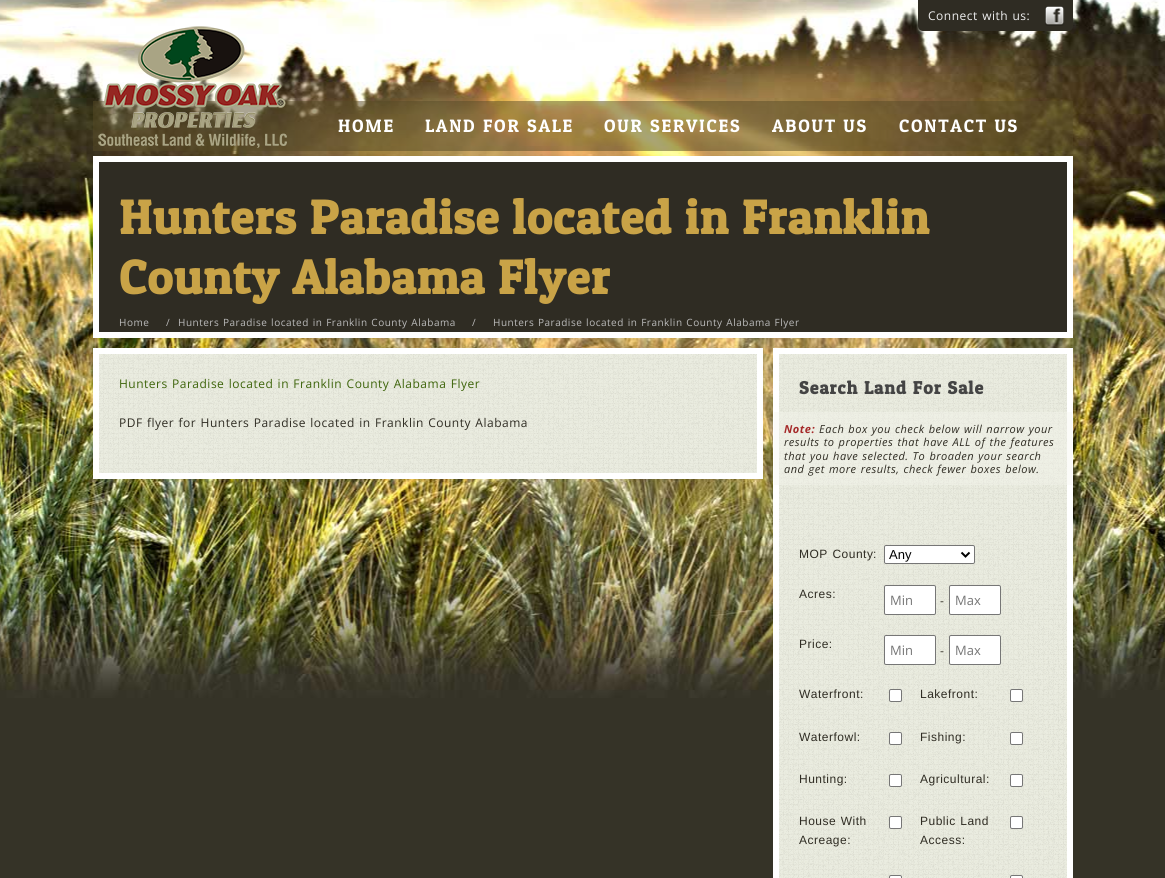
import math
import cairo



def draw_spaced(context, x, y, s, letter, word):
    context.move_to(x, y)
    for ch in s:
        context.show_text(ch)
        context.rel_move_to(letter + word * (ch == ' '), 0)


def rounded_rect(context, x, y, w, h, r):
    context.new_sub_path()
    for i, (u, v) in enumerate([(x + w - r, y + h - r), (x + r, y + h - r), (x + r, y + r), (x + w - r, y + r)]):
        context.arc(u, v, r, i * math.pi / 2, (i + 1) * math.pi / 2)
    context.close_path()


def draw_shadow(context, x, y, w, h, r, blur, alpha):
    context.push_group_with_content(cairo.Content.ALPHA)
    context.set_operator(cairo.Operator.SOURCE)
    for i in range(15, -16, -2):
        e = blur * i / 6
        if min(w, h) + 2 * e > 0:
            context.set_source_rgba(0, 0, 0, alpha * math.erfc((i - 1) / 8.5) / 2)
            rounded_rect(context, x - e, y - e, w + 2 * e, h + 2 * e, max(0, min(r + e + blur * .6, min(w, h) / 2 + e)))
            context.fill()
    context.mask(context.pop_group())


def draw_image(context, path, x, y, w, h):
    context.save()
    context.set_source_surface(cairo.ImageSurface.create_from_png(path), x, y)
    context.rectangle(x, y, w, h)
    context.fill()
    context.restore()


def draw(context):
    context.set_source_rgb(53 / 255, 51 / 255, 39 / 255)
    context.paint()
    draw_image(context, "images/1.png", 0, 0, 1165, 698)
    context.set_source_rgb(47 / 255, 44 / 255, 35 / 255)
    context.new_path()
    context.move_to(918, 0)
    context.line_to(1041, 0)
    context.line_to(1041, 31)
    context.line_to(923, 31)
    context.curve_to(920, 31, 918, 29, 918, 26)
    context.close_path()
    context.fill()
    context.new_path()
    context.move_to(1041, 0)
    context.line_to(1073, 0)
    context.line_to(1073, 26)
    context.curve_to(1073, 29, 1071, 31, 1068, 31)
    context.line_to(1041, 31)
    context.close_path()
    context.fill()
    draw_image(context, "images/2.png", 1045, 6, 20, 20)
    context.set_source_rgba(87 / 255, 75 / 255, 38 / 255, 0.5)
    context.rectangle(93, 101, 980, 50)
    context.fill()
    draw_image(context, "images/3.png", 98, 26, 189, 122)
    context.set_source_rgb(0, 0, 0)
    draw_shadow(context, 93, 157, 980, 182, 2, 1.5, 0.05)
    context.set_source_rgb(47 / 255, 44 / 255, 35 / 255)
    context.rectangle(99, 162, 968, 170)
    context.fill()
    context.new_path()
    context.move_to(96, 159)
    context.line_to(1070, 159)
    context.line_to(1070, 335)
    context.line_to(96, 335)
    context.close_path()
    context.set_source_rgb(1, 1, 1)
    context.set_line_width(6)
    context.stroke()
    context.set_source_rgb(0, 0, 0)
    draw_shadow(context, 93, 349, 670, 131, 2, 1.5, 0.05)
    context.set_source_rgb(232 / 255, 234 / 255, 220 / 255)
    context.rectangle(99, 354, 658, 119)
    context.fill()
    draw_image(context, "images/4.png", 99, 354, 658, 119)
    context.new_path()
    context.move_to(96, 351)
    context.line_to(760, 351)
    context.line_to(760, 476)
    context.line_to(96, 476)
    context.close_path()
    context.set_source_rgb(1, 1, 1)
    context.stroke()
    context.set_source_rgb(232 / 255, 234 / 255, 220 / 255)
    context.rectangle(779, 354, 288, 158)
    context.fill()
    draw_image(context, "images/5.png", 779, 354, 288, 158)
    context.new_path()
    context.move_to(776, 351)
    context.line_to(1070, 351)
    context.line_to(1070, 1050)
    context.line_to(776, 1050)
    context.close_path()
    context.set_source_rgb(1, 1, 1)
    context.stroke()
    context.set_source_rgb(232 / 255, 234 / 255, 220 / 255)
    rounded_rect(context, 779, 354, 288, 146, 2)
    context.fill()
    draw_image(context, "images/6.png", 779, 354, 288, 146)
    context.set_source_rgba(246 / 255, 245 / 255, 237 / 255, 0.4)
    context.rectangle(774, 412, 298, 73)
    context.fill()
    context.set_source_rgb(232 / 255, 234 / 255, 220 / 255)
    rounded_rect(context, 779, 510, 288, 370, 2)
    context.fill()
    draw_image(context, "images/7.png", 779, 510, 288, 368)
    context.set_source_rgb(1, 1, 1)
    rounded_rect(context, 884.5, 545.5, 90, 18, 1.5)
    context.fill_preserve()
    context.set_source_rgb(118 / 255, 118 / 255, 118 / 255)
    context.set_line_width(1)
    context.stroke()
    context.new_path()
    context.move_to(961.5, 552.5)
    context.line_to(965.5, 556.5)
    context.line_to(969.5, 552.5)
    context.set_source_rgb(0, 0, 0)
    context.set_line_width(2)
    context.stroke()
    context.set_source_rgb(1, 1, 1)
    rounded_rect(context, 884.5, 585.5, 51, 29, 1.5)
    context.fill_preserve()
    context.set_source_rgb(118 / 255, 118 / 255, 118 / 255)
    context.set_line_width(1)
    context.stroke()
    context.set_source_rgb(1, 1, 1)
    rounded_rect(context, 949.5, 585.5, 51, 29, 1.5)
    context.fill_preserve()
    context.set_source_rgb(118 / 255, 118 / 255, 118 / 255)
    context.stroke()
    context.set_source_rgb(1, 1, 1)
    rounded_rect(context, 884.5, 635.5, 51, 29, 1.5)
    context.fill_preserve()
    context.set_source_rgb(118 / 255, 118 / 255, 118 / 255)
    context.stroke()
    context.set_source_rgb(1, 1, 1)
    rounded_rect(context, 949.5, 635.5, 51, 29, 1.5)
    context.fill_preserve()
    context.set_source_rgb(118 / 255, 118 / 255, 118 / 255)
    context.stroke()
    context.set_source_rgb(1, 1, 1)
    rounded_rect(context, 889.5, 689.5, 12, 12, 1.5)
    context.fill_preserve()
    context.set_source_rgb(118 / 255, 118 / 255, 118 / 255)
    context.stroke()
    context.set_source_rgb(1, 1, 1)
    rounded_rect(context, 1010.5, 689.5, 12, 12, 1.5)
    context.fill_preserve()
    context.set_source_rgb(118 / 255, 118 / 255, 118 / 255)
    context.stroke()
    context.set_source_rgb(1, 1, 1)
    rounded_rect(context, 889.5, 732.5, 12, 12, 1.5)
    context.fill_preserve()
    context.set_source_rgb(118 / 255, 118 / 255, 118 / 255)
    context.stroke()
    context.set_source_rgb(1, 1, 1)
    rounded_rect(context, 1010.5, 732.5, 12, 12, 1.5)
    context.fill_preserve()
    context.set_source_rgb(118 / 255, 118 / 255, 118 / 255)
    context.stroke()
    context.set_source_rgb(1, 1, 1)
    rounded_rect(context, 889.5, 774.5, 12, 12, 1.5)
    context.fill_preserve()
    context.set_source_rgb(118 / 255, 118 / 255, 118 / 255)
    context.stroke()
    context.set_source_rgb(1, 1, 1)
    rounded_rect(context, 1010.5, 774.5, 12, 12, 1.5)
    context.fill_preserve()
    context.set_source_rgb(118 / 255, 118 / 255, 118 / 255)
    context.stroke()
    context.set_source_rgb(1, 1, 1)
    rounded_rect(context, 889.5, 816.5, 12, 12, 1.5)
    context.fill_preserve()
    context.set_source_rgb(118 / 255, 118 / 255, 118 / 255)
    context.stroke()
    context.set_source_rgb(1, 1, 1)
    rounded_rect(context, 1010.5, 816.5, 12, 12, 1.5)
    context.fill_preserve()
    context.set_source_rgb(118 / 255, 118 / 255, 118 / 255)
    context.stroke()
    context.set_source_rgb(1, 1, 1)
    rounded_rect(context, 889.5, 875.5, 12, 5, 1.5)
    context.fill_preserve()
    context.set_source_rgb(118 / 255, 118 / 255, 118 / 255)
    context.stroke()
    context.set_source_rgb(1, 1, 1)
    rounded_rect(context, 1010.5, 875.5, 12, 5, 1.5)
    context.fill_preserve()
    context.set_source_rgb(118 / 255, 118 / 255, 118 / 255)
    context.stroke()
    context.select_font_face("Open Sans")
    context.set_font_size(12)
    context.set_source_rgb(238 / 255, 238 / 255, 238 / 255)
    draw_spaced(context, 928, 20, "Connect with us:", 0.5, 0.75)
    context.select_font_face("Patua One")
    context.set_font_size(18)
    context.set_source_rgb(1, 1, 1)
    draw_spaced(context, 338, 132, "HOME", 1.75, 0)
    draw_spaced(context, 425, 132, "LAND FOR SALE", 1.75, 0.75)
    draw_spaced(context, 604, 132, "OUR SERVICES", 1.75, 0.75)
    draw_spaced(context, 772, 132, "ABOUT US", 1.75, 0.75)
    draw_spaced(context, 899, 132, "CONTACT US", 1.75, 0.75)
    context.select_font_face("Patua One", cairo.FontSlant.NORMAL, cairo.FontWeight.BOLD)
    context.set_font_size(48)
    context.set_source_rgb(201 / 255, 163 / 255, 71 / 255)
    draw_spaced(context, 119, 234, "Hunters Paradise located in Franklin", 1, 0.75)
    draw_spaced(context, 119, 294, "County Alabama Flyer", 1, 0.75)
    context.select_font_face("Open Sans")
    context.set_font_size(10)
    context.set_source_rgb(187 / 255, 187 / 255, 187 / 255)
    draw_spaced(context, 119, 326, "Home", 0.5, 0)
    draw_spaced(context, 166, 326, "/", 0.5, 0)
    draw_spaced(context, 178, 326, "Hunters Paradise located in Franklin County Alabama", 0.5, 0.75)
    draw_spaced(context, 472, 326, "/", 0.5, 0)
    draw_spaced(context, 493, 326, "Hunters Paradise located in Franklin County Alabama Flyer", 0.5, 0.75)
    context.set_font_size(12)
    context.set_source_rgb(61 / 255, 100 / 255, 10 / 255)
    draw_spaced(context, 119, 388, "Hunters Paradise located in Franklin County Alabama Flyer", 0.5, 0.75)
    context.set_source_rgb(47 / 255, 44 / 255, 35 / 255)
    draw_spaced(context, 119, 427, "PDF flyer for Hunters Paradise located in Franklin County Alabama", 0.5, 0.75)
    context.select_font_face("Patua One", cairo.FontSlant.NORMAL, cairo.FontWeight.BOLD)
    context.set_font_size(18)
    context.set_source_rgb(68 / 255, 68 / 255, 68 / 255)
    draw_spaced(context, 799, 394, "Search Land For Sale", 1, 0.75)
    context.select_font_face("Open Sans", cairo.FontSlant.ITALIC, cairo.FontWeight.BOLD)
    context.set_font_size(11)
    context.set_source_rgb(165 / 255, 42 / 255, 42 / 255)
    draw_spaced(context, 784, 433, "Note:", 0.5, 0)
    context.select_font_face("Open Sans", cairo.FontSlant.ITALIC)
    context.set_source_rgb(47 / 255, 44 / 255, 35 / 255)
    draw_spaced(context, 819, 433, "Each box you check below will narrow your", 0.5, 0.75)
    draw_spaced(context, 784, 446, "results to properties that have ALL of the features", 0.5, 0.75)
    draw_spaced(context, 784, 460, "that you have selected. To broaden your search", 0.5, 0.75)
    draw_spaced(context, 784, 473, "and get more results, check fewer boxes below.", 0.5, 0.75)
    context.select_font_face("Liberation Sans")
    context.set_font_size(12)
    draw_spaced(context, 799, 558, "MOP County", 0.5, 0.75)
    draw_spaced(context, 873, 558, ":", 0.5, 0)
    context.set_font_size(13)
    context.set_source_rgb(0, 0, 0)
    context.move_to(889, 559)
    context.show_text("Any")
    context.set_font_size(12)
    context.set_source_rgb(47 / 255, 44 / 255, 35 / 255)
    draw_spaced(context, 799, 598, "Acres:", 0.5, 0)
    context.select_font_face("Open Sans")
    context.set_font_size(13)
    context.set_source_rgb(117 / 255, 117 / 255, 117 / 255)
    context.move_to(890, 605)
    context.show_text("Min")
    context.set_font_size(12)
    context.set_source_rgb(47 / 255, 44 / 255, 35 / 255)
    draw_spaced(context, 940, 605, "-", 0.5, 0)
    context.set_font_size(13)
    context.set_source_rgb(117 / 255, 117 / 255, 117 / 255)
    context.move_to(955, 605)
    context.show_text("Max")
    context.select_font_face("Liberation Sans")
    context.set_font_size(12)
    context.set_source_rgb(47 / 255, 44 / 255, 35 / 255)
    draw_spaced(context, 799, 648, "Price:", 0.5, 0)
    context.select_font_face("Open Sans")
    context.set_font_size(13)
    context.set_source_rgb(117 / 255, 117 / 255, 117 / 255)
    context.move_to(890, 655)
    context.show_text("Min")
    context.set_font_size(12)
    context.set_source_rgb(47 / 255, 44 / 255, 35 / 255)
    draw_spaced(context, 940, 655, "-", 0.5, 0)
    context.set_font_size(13)
    context.set_source_rgb(117 / 255, 117 / 255, 117 / 255)
    context.move_to(955, 655)
    context.show_text("Max")
    context.select_font_face("Liberation Sans")
    context.set_font_size(12)
    context.set_source_rgb(47 / 255, 44 / 255, 35 / 255)
    draw_spaced(context, 799, 698, "Waterfront:", 0.5, 0)
    draw_spaced(context, 920, 698, "Lakefront:", 0.5, 0)
    draw_spaced(context, 799, 741, "Waterfowl:", 0.5, 0)
    draw_spaced(context, 920, 741, "Fishing:", 0.5, 0)
    draw_spaced(context, 799, 783, "Hunting:", 0.5, 0)
    draw_spaced(context, 920, 783, "Agricultural:", 0.5, 0)
    draw_spaced(context, 799, 825, "House With", 0.5, 0.75)
    draw_spaced(context, 799, 844, "Acreage:", 0.5, 0)
    draw_spaced(context, 920, 825, "Public Land", 0.5, 0.75)
    draw_spaced(context, 920, 844, "Access:", 0.5, 0)


surface = cairo.ImageSurface(cairo.Format.RGB24, 1165, 878)
context = cairo.Context(surface)
options = cairo.FontOptions()
options.set_hint_metrics(cairo.HintMetrics.OFF)
options.set_hint_style(cairo.HintStyle.NONE)
context.set_font_options(options)
context.set_miter_limit(4)
draw(context)
surface.write_to_png("out.png")
